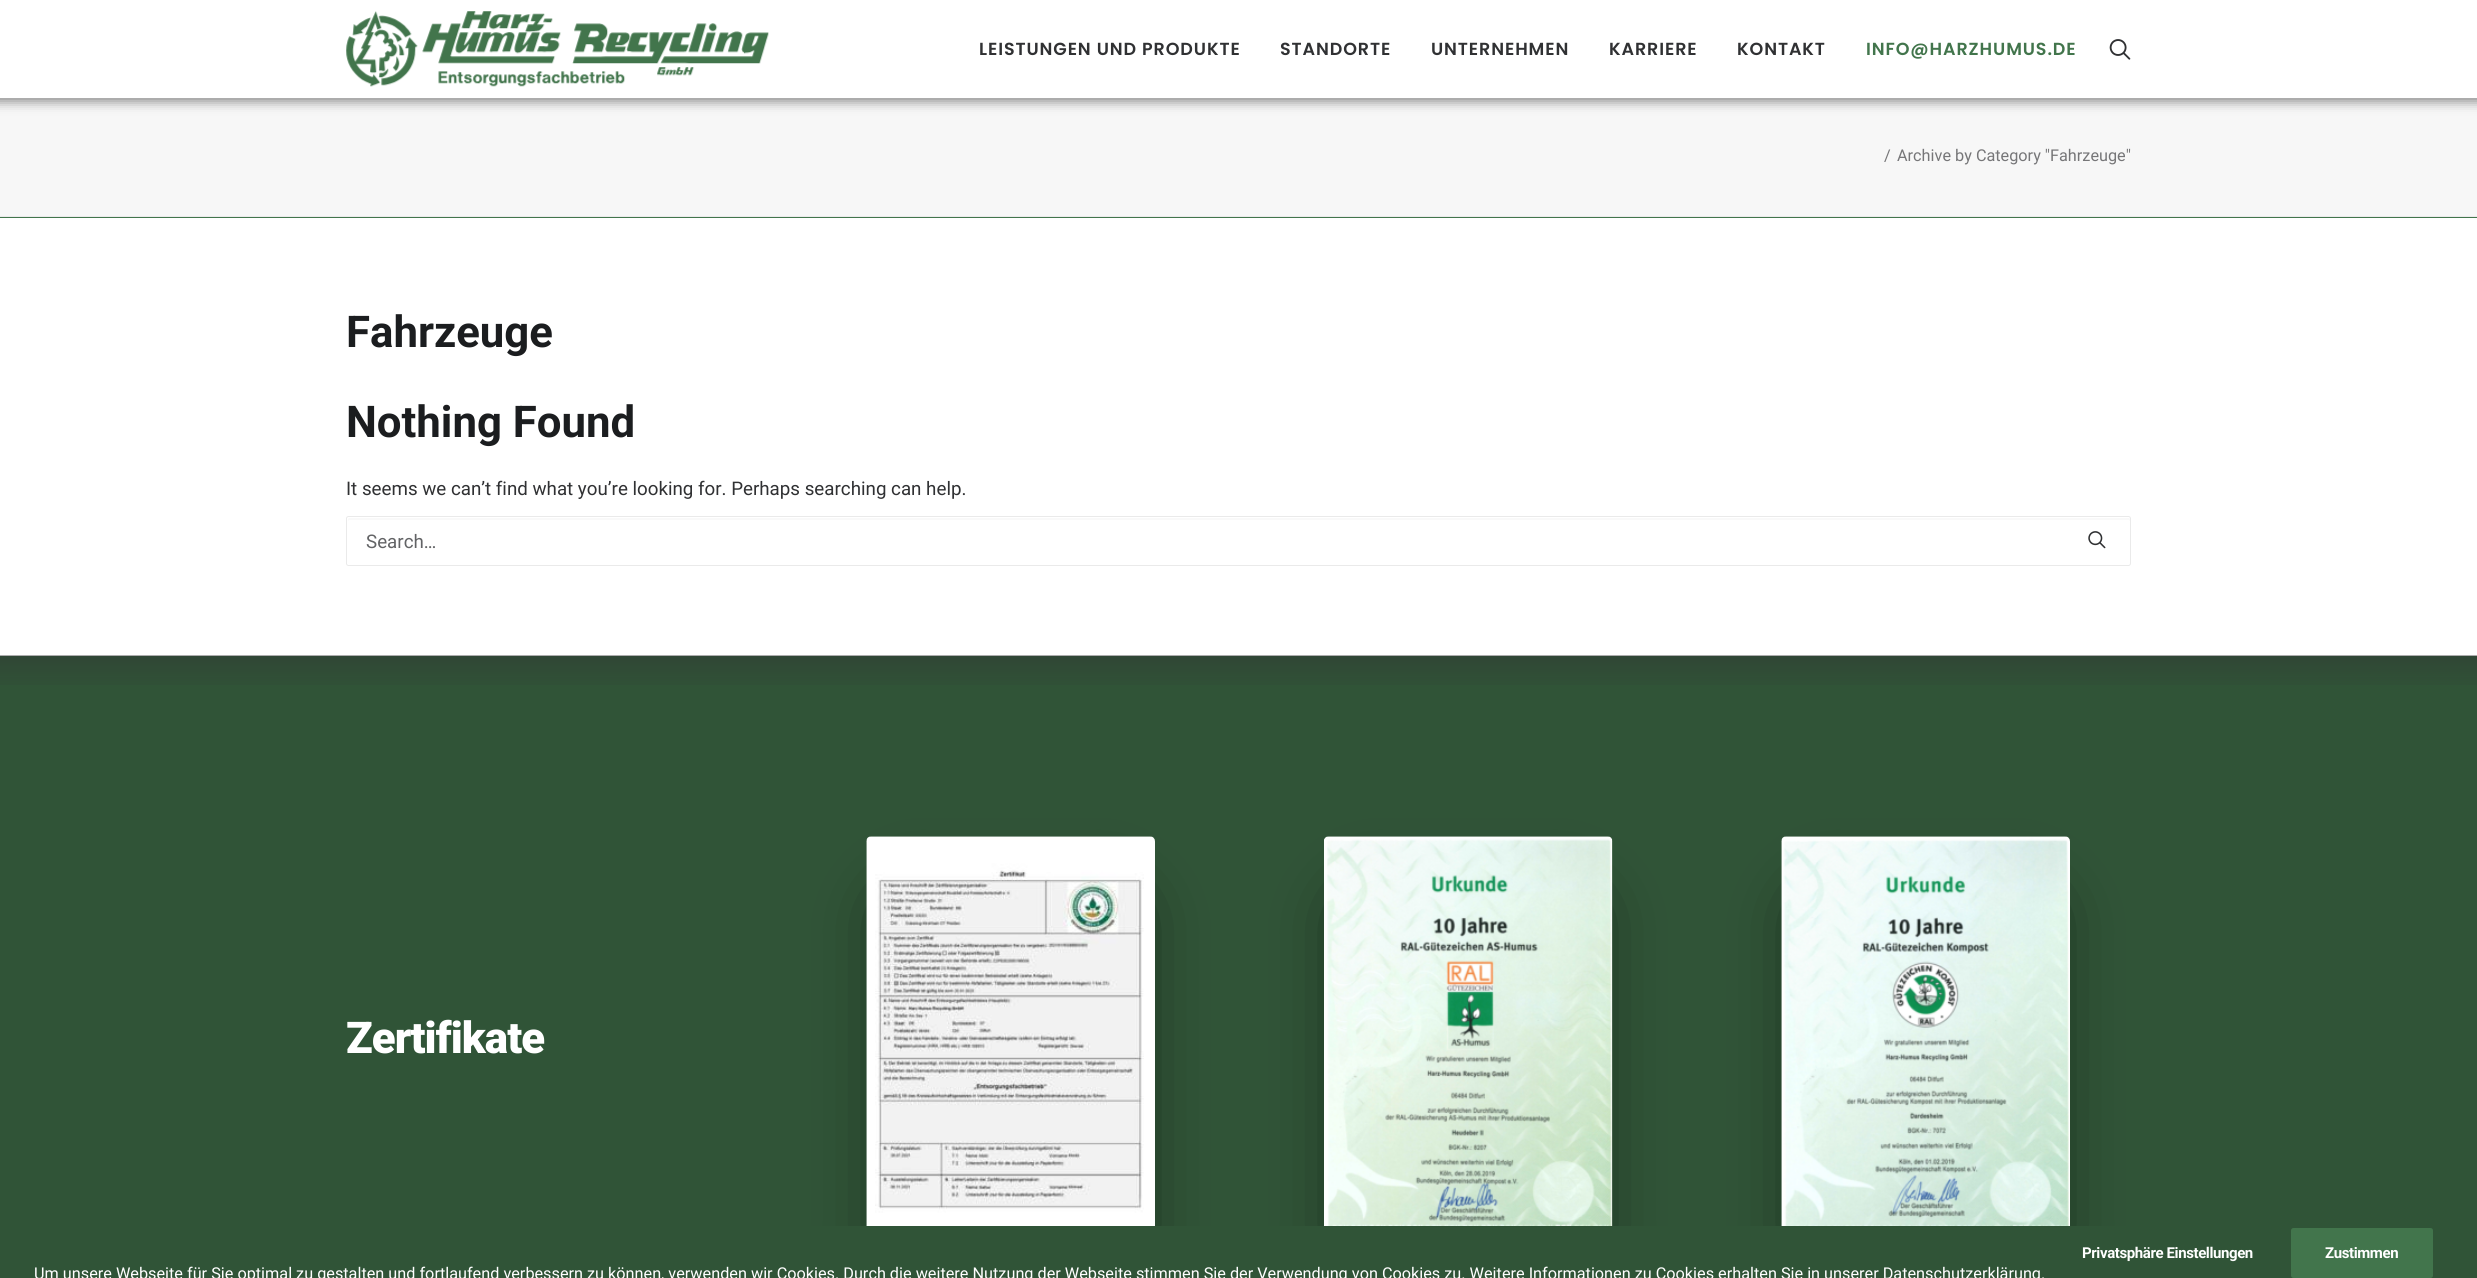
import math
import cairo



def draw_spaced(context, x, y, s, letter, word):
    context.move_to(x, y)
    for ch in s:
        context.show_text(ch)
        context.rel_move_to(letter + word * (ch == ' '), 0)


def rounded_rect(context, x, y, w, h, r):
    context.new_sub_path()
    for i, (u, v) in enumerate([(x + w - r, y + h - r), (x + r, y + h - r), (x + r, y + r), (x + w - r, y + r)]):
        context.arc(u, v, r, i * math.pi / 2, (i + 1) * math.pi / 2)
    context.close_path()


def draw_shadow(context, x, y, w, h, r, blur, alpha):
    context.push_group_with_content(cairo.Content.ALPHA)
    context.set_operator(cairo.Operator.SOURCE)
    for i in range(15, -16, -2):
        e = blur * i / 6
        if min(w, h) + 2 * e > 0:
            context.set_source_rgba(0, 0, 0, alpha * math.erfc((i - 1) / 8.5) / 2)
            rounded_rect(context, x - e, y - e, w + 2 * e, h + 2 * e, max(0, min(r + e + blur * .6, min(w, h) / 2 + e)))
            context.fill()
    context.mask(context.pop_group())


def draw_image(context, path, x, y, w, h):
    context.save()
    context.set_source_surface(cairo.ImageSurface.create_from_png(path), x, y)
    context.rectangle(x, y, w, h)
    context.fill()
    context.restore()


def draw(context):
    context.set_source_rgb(66 / 255, 117 / 255, 76 / 255)
    context.paint()
    context.set_source_rgb(247 / 255, 247 / 255, 247 / 255)
    context.rectangle(0, 98, 2477, 118)
    context.fill()
    context.set_source_rgb(0, 0, 0)
    draw_shadow(context, -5, 4, 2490, 97, 0, 6, 0.48)
    context.set_source_rgb(1, 1, 1)
    context.rectangle(0, 0, 2477, 98)
    context.fill()
    draw_image(context, "images/1.png", 346, 11, 423, 76)
    draw_image(context, "images/2.png", 2109, 39, 22, 21)
    context.set_source_rgb(234 / 255, 234 / 255, 234 / 255)
    context.rectangle(0, 216, 2477, 1)
    context.fill()
    context.set_source_rgb(1, 1, 1)
    context.rectangle(0, 218, 2477, 438)
    context.fill()
    context.set_source_rgb(249 / 255, 249 / 255, 249 / 255)
    context.new_path()
    context.move_to(349, 520)
    context.line_to(2129, 520)
    context.line_to(2130, 521)
    context.line_to(2130, 519)
    context.line_to(2129, 518)
    context.line_to(349, 518)
    context.line_to(348, 519)
    context.line_to(348, 521)
    context.close_path()
    context.fill()
    rounded_rect(context, 346.5, 516.5, 1784, 49, 2)
    context.set_source_rgb(234 / 255, 234 / 255, 234 / 255)
    context.set_line_width(1)
    context.stroke()
    draw_image(context, "images/3.png", 2088, 531, 18, 18)
    context.set_source_rgb(48 / 255, 84 / 255, 55 / 255)
    context.rectangle(0, 656, 2477, 570)
    context.fill()
    gradient = cairo.LinearGradient(1239, 693, 1239, 655)
    gradient.add_color_stop_rgba(0, 48 / 255, 49 / 255, 51 / 255, 0)
    gradient.add_color_stop_rgba(1, 48 / 255, 49 / 255, 51 / 255, 0.4)
    context.set_source(gradient)
    context.rectangle(0, 655, 2477, 30)
    context.fill()
    context.set_source_rgb(0, 0, 0)
    draw_shadow(context, 904, 911, 214, 333, 0, 37.5, 1)
    draw_image(context, "images/4.png", 866, 836, 289, 390)
    draw_shadow(context, 1361, 911, 214, 333, 0, 37.5, 1)
    draw_image(context, "images/5.png", 1324, 836, 289, 390)
    draw_shadow(context, 1819, 911, 214, 332, 0, 37.5, 1)
    draw_image(context, "images/6.png", 1781, 836, 289, 390)
    context.set_source_rgb(48 / 255, 84 / 255, 55 / 255)
    context.rectangle(0, 1226, 2477, 52)
    context.fill()
    context.set_source_rgb(66 / 255, 117 / 255, 76 / 255)
    rounded_rect(context, 2291, 1228, 142, 50, 2.5)
    context.fill()
    context.select_font_face("Poppins SemiBold")
    context.set_font_size(17.5)
    context.set_source_rgb(48 / 255, 49 / 255, 51 / 255)
    draw_spaced(context, 979, 55, "LEISTUNGEN UND PRODUKTE", 0.9, 0)
    draw_spaced(context, 1280, 55, "STANDORTE", 0.9, 0)
    draw_spaced(context, 1431, 55, "UNTERNEHMEN", 0.9, 0)
    draw_spaced(context, 1609, 55, "KARRIERE", 0.9, 0)
    draw_spaced(context, 1737, 55, "KONTAKT", 0.9, 0)
    context.set_source_rgb(66 / 255, 117 / 255, 76 / 255)
    draw_spaced(context, 1866, 55, "INFO@HARZHUMUS.DE", 0.9, 0)
    context.select_font_face("Roboto")
    context.set_font_size(16.25)
    context.set_source_rgb(118 / 255, 118 / 255, 120 / 255)
    context.move_to(1884, 161)
    context.show_text("/")
    context.move_to(1897, 161)
    context.show_text("Archive by Category \"Fahrzeuge\"")
    context.select_font_face("Roboto", cairo.FontSlant.NORMAL, cairo.FontWeight.BOLD)
    context.set_font_size(43.75)
    context.set_source_rgb(27 / 255, 29 / 255, 31 / 255)
    context.move_to(346, 347)
    context.show_text("Fahrzeuge")
    context.move_to(346, 437)
    context.show_text("Nothing Found")
    context.select_font_face("Roboto")
    context.set_font_size(18.75)
    context.set_source_rgb(48 / 255, 49 / 255, 51 / 255)
    context.move_to(346, 495)
    context.show_text("It seems we can’t find what you’re looking for. Perhaps searching can help.")
    context.set_source_rgb(98 / 255, 99 / 255, 101 / 255)
    context.move_to(366, 548)
    context.show_text("Search…")
    context.select_font_face("Roboto Black")
    context.set_font_size(43.75)
    context.set_source_rgb(1, 1, 1)
    draw_spaced(context, 346, 1053, "Zertifikate", -0.9, 0)
    context.select_font_face("Roboto", cairo.FontSlant.NORMAL, cairo.FontWeight.BOLD)
    context.set_font_size(15)
    draw_spaced(context, 2082, 1258, "Privatsphäre Einstellungen", -0.4, 0)
    draw_spaced(context, 2325, 1258, "Zustimmen", -0.4, 0)
    context.select_font_face("Roboto")
    context.set_font_size(16.25)
    context.move_to(34, 1279)
    context.show_text("Um unsere Webseite für Sie optimal zu gestalten und fortlaufend verbessern zu können, verwenden wir Cookies. Durch die weitere Nutzung der Webseite stimmen Sie der Verwendung von Cookies zu. Weitere Informationen zu Cookies erhalten Sie in unserer Datenschutzerklärung.")


surface = cairo.ImageSurface(cairo.Format.RGB24, 2477, 1278)
context = cairo.Context(surface)
options = cairo.FontOptions()
options.set_hint_metrics(cairo.HintMetrics.OFF)
options.set_hint_style(cairo.HintStyle.NONE)
context.set_font_options(options)
context.set_miter_limit(4)
draw(context)
surface.write_to_png("out.png")
